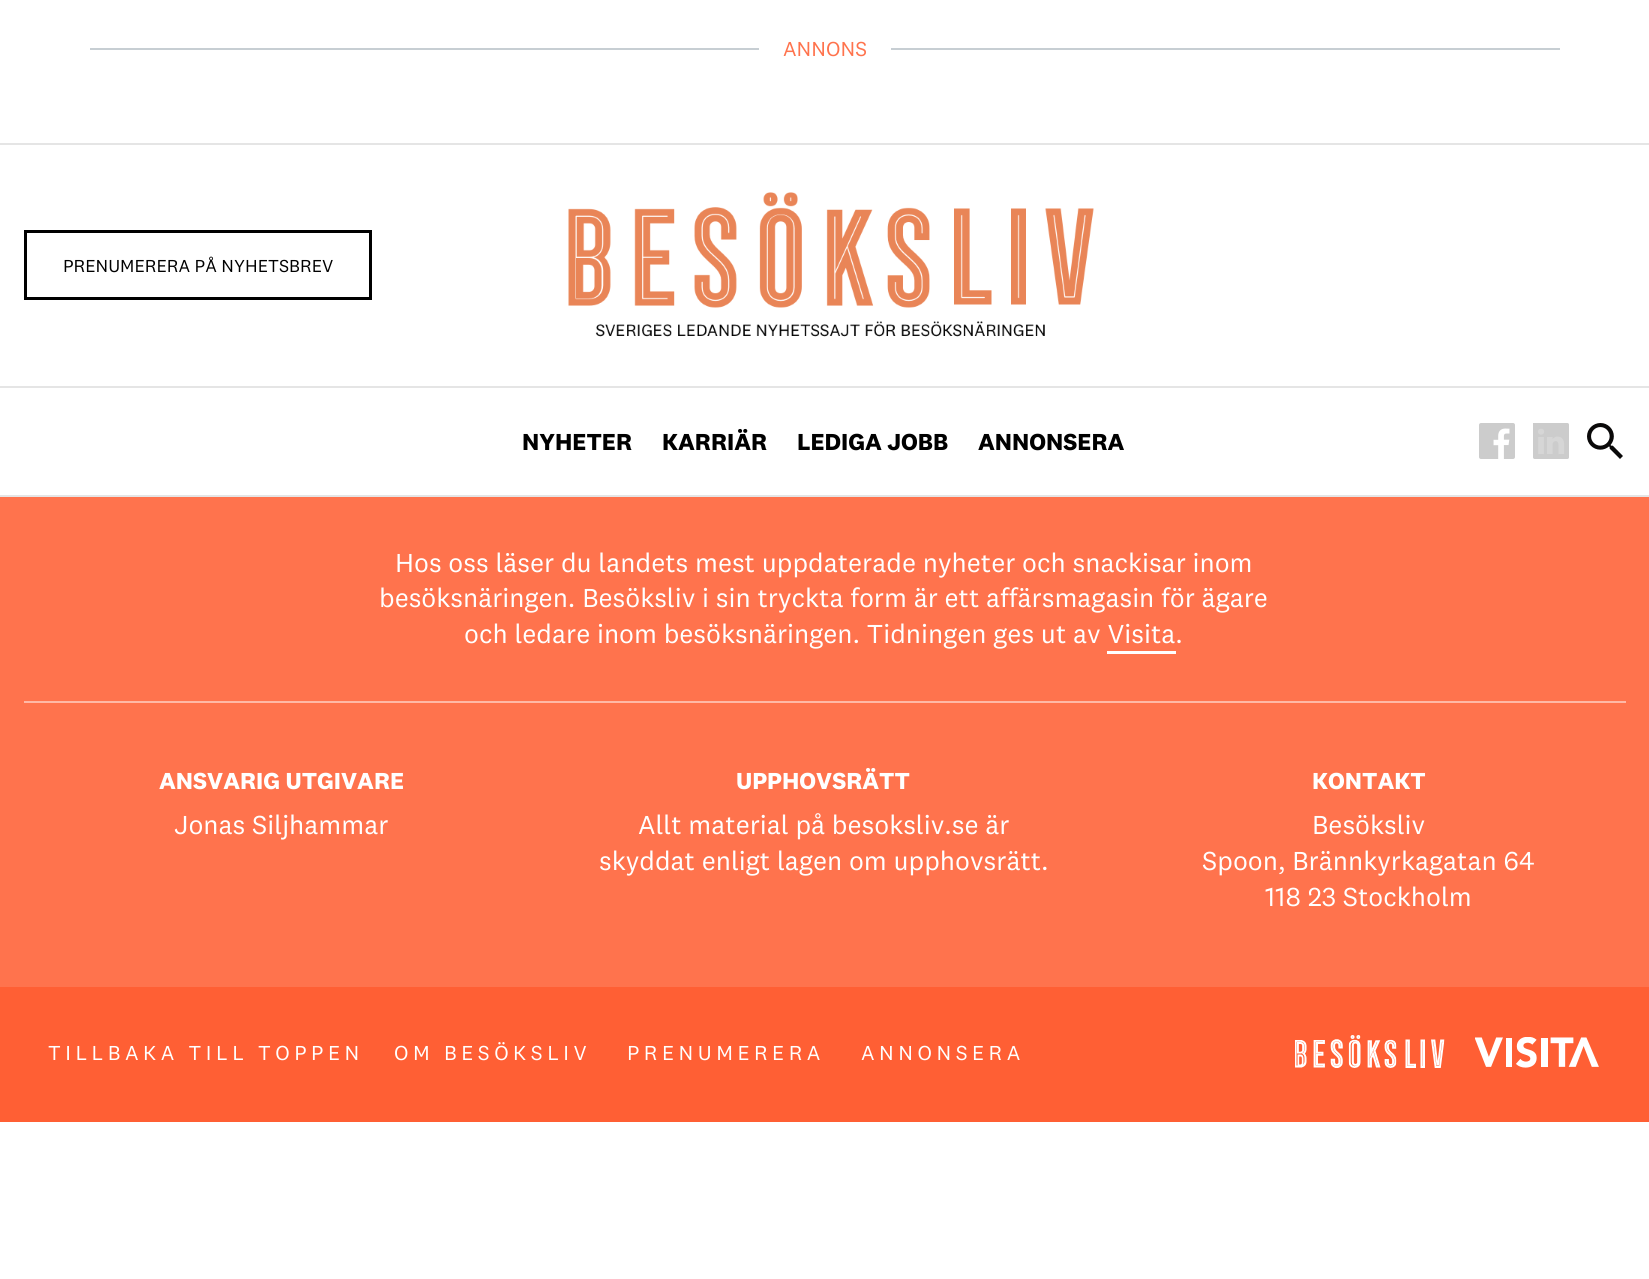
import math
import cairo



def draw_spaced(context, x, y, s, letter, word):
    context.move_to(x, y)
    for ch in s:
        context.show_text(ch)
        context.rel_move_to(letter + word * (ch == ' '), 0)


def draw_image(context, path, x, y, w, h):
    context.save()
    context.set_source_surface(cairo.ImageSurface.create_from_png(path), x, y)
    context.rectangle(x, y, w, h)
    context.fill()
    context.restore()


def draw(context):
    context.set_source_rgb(1, 1, 1)
    context.paint()
    context.set_source_rgb(199 / 255, 206 / 255, 211 / 255)
    context.rectangle(90, 48, 1470, 2)
    context.fill()
    context.set_source_rgb(1, 1, 1)
    context.rectangle(759, 48, 132, 2)
    context.fill()
    context.set_source_rgb(229 / 255, 229 / 255, 229 / 255)
    context.rectangle(0, 143, 1649, 2)
    context.fill()
    context.rectangle(0, 386, 1649, 2)
    context.fill()
    context.rectangle(25.5, 231.5, 345, 67)
    context.set_source_rgb(0, 0, 0)
    context.set_line_width(3)
    context.stroke()
    draw_image(context, "images/1.png", 568, 192, 526, 145)
    context.set_source_rgb(229 / 255, 229 / 255, 229 / 255)
    context.rectangle(0, 495, 1649, 2)
    context.fill()
    draw_image(context, "images/2.png", 1479, 423, 36, 36)
    draw_image(context, "images/3.png", 1533, 423, 36, 36)
    draw_image(context, "images/4.png", 1587, 423, 36, 36)
    context.set_source_rgb(1, 115 / 255, 77 / 255)
    context.rectangle(0, 497, 1649, 490)
    context.fill()
    context.set_source_rgb(1, 185 / 255, 166 / 255)
    context.rectangle(24, 701, 1602, 2)
    context.fill()
    context.set_source_rgb(1, 1, 1)
    context.rectangle(1107, 651, 69, 3)
    context.fill()
    context.set_source_rgb(1, 95 / 255, 52 / 255)
    context.rectangle(0, 987, 1649, 135)
    context.fill()
    draw_image(context, "images/5.png", 1295, 1035, 150, 33)
    draw_image(context, "images/6.png", 1475, 1037, 124, 31)
    context.select_font_face("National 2")
    context.set_font_size(21)
    context.set_source_rgb(1, 115 / 255, 77 / 255)
    context.move_to(783, 56)
    context.show_text("ANNONS")
    context.set_font_size(18)
    context.set_source_rgb(0, 0, 0)
    context.move_to(63, 272)
    context.show_text("PRENUMERERA PÅ NYHETSBREV")
    context.select_font_face("National 2", cairo.FontSlant.NORMAL, cairo.FontWeight.BOLD)
    context.set_font_size(24)
    context.move_to(522, 450)
    context.show_text("NYHETER")
    context.move_to(662, 450)
    context.show_text("KARRIÄR")
    context.move_to(797, 450)
    context.show_text("LEDIGA JOBB")
    context.move_to(978, 450)
    context.show_text("ANNONSERA")
    context.select_font_face("National 2")
    context.set_font_size(27)
    context.set_source_rgb(1, 1, 1)
    context.move_to(395, 572)
    context.show_text("Hos oss läser du landets mest uppdaterade nyheter och snackisar inom")
    context.move_to(379, 607)
    context.show_text("besöksnäringen. Besöksliv i sin tryckta form är ett affärsmagasin för ägare")
    context.move_to(464, 643)
    context.show_text("och ledare inom besöksnäringen. Tidningen ges ut av Visita.")
    context.select_font_face("National 2", cairo.FontSlant.NORMAL, cairo.FontWeight.BOLD)
    context.set_font_size(24)
    context.move_to(159, 789)
    context.show_text("ANSVARIG UTGIVARE")
    context.select_font_face("National 2")
    context.set_font_size(27)
    context.move_to(174, 834)
    context.show_text("Jonas Siljhammar")
    context.select_font_face("National 2", cairo.FontSlant.NORMAL, cairo.FontWeight.BOLD)
    context.set_font_size(24)
    context.move_to(736, 789)
    context.show_text("UPPHOVSRÄTT")
    context.select_font_face("National 2")
    context.set_font_size(27)
    context.move_to(638, 834)
    context.show_text("Allt material på besoksliv.se är")
    context.move_to(599, 870)
    context.show_text("skyddat enligt lagen om upphovsrätt.")
    context.select_font_face("National 2", cairo.FontSlant.NORMAL, cairo.FontWeight.BOLD)
    context.set_font_size(24)
    context.move_to(1312, 789)
    context.show_text("KONTAKT")
    context.select_font_face("National 2")
    context.set_font_size(27)
    context.move_to(1312, 834)
    context.show_text("Besöksliv")
    context.move_to(1202, 870)
    context.show_text("Spoon, Brännkyrkagatan 64")
    context.move_to(1265, 906)
    context.show_text("118 23 Stockholm")
    context.set_font_size(21)
    draw_spaced(context, 48, 1060, "TILLBAKA TILL TOPPEN", 4.5, 0)
    draw_spaced(context, 394, 1060, "OM BESÖKSLIV", 4.5, 0)
    draw_spaced(context, 627, 1060, "PRENUMERERA", 4.5, 0)
    draw_spaced(context, 861, 1060, "ANNONSERA", 4.5, 0)


surface = cairo.ImageSurface(cairo.Format.RGB24, 1649, 1279)
context = cairo.Context(surface)
options = cairo.FontOptions()
options.set_hint_metrics(cairo.HintMetrics.OFF)
options.set_hint_style(cairo.HintStyle.NONE)
context.set_font_options(options)
context.set_miter_limit(4)
draw(context)
surface.write_to_png("out.png")
